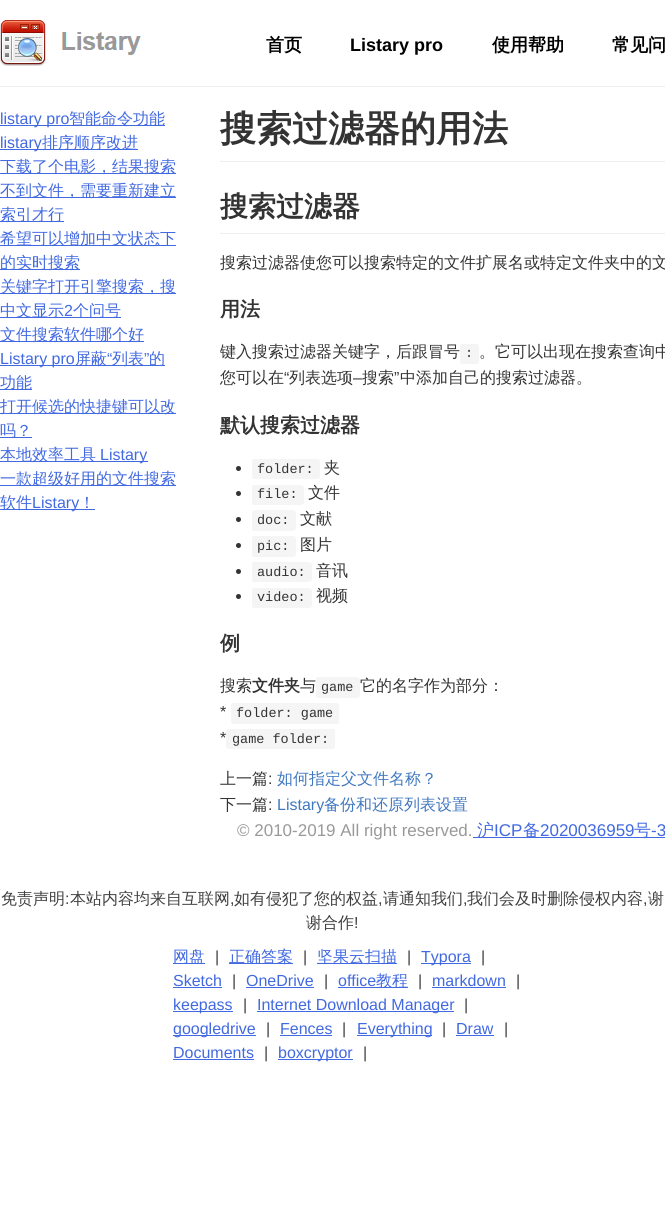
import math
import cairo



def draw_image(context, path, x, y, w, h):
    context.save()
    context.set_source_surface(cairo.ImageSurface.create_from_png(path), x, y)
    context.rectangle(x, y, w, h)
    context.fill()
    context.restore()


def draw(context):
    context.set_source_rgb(1, 1, 1)
    context.paint()
    draw_image(context, "images/1.png", 0, 20, 141, 46)
    context.set_source_rgb(238 / 255, 238 / 255, 238 / 255)
    context.rectangle(0, 86, 665, 1)
    context.fill()
    context.set_source_rgb(65 / 255, 105 / 255, 225 / 255)
    context.rectangle(0, 125, 165, 1)
    context.fill()
    context.rectangle(0, 149, 138, 1)
    context.fill()
    context.rectangle(0, 173, 176, 1)
    context.fill()
    context.rectangle(0, 197, 176, 1)
    context.fill()
    context.rectangle(0, 221, 64, 1)
    context.fill()
    context.rectangle(0, 245, 176, 1)
    context.fill()
    context.rectangle(0, 269, 80, 1)
    context.fill()
    context.rectangle(0, 293, 176, 1)
    context.fill()
    context.rectangle(0, 317, 121, 1)
    context.fill()
    context.rectangle(0, 341, 144, 1)
    context.fill()
    context.rectangle(0, 365, 165, 1)
    context.fill()
    context.rectangle(0, 389, 32, 1)
    context.fill()
    context.rectangle(0, 413, 176, 1)
    context.fill()
    context.rectangle(0, 437, 32, 1)
    context.fill()
    context.rectangle(0, 461, 148, 1)
    context.fill()
    context.rectangle(0, 485, 176, 1)
    context.fill()
    context.rectangle(0, 509, 95, 1)
    context.fill()
    context.set_source_rgb(238 / 255, 238 / 255, 238 / 255)
    context.rectangle(220, 161, 445, 1)
    context.fill()
    context.rectangle(220, 233, 445, 1)
    context.fill()
    context.set_source_rgb(245 / 255, 245 / 255, 245 / 255)
    context.new_path()
    context.move_to(462.5, 344)
    context.line_to(465, 344)
    context.line_to(465, 364)
    context.line_to(462.5, 364)
    context.curve_to(461, 364, 460, 363, 460, 361.5)
    context.line_to(460, 346.5)
    context.curve_to(460, 345, 461, 344, 462.5, 344)
    context.close_path()
    context.fill()
    context.rectangle(465, 344, 9, 20)
    context.fill()
    context.new_path()
    context.move_to(474, 344)
    context.line_to(476.5, 344)
    context.curve_to(478, 344, 479, 345, 479, 346.5)
    context.line_to(479, 361.5)
    context.curve_to(479, 363, 478, 364, 476.5, 364)
    context.line_to(474, 364)
    context.close_path()
    context.fill()
    context.set_source_rgb(51 / 255, 51 / 255, 51 / 255)
    context.arc(238.5, 468.5, 2.5, 0, 2 * math.pi)
    context.fill()
    context.set_source_rgb(245 / 255, 245 / 255, 245 / 255)
    context.new_path()
    context.move_to(254.5, 459)
    context.line_to(257, 459)
    context.line_to(257, 479)
    context.line_to(254.5, 479)
    context.curve_to(253, 479, 252, 478, 252, 476.5)
    context.line_to(252, 461.5)
    context.curve_to(252, 460, 253, 459, 254.5, 459)
    context.close_path()
    context.fill()
    context.rectangle(257, 459, 58, 20)
    context.fill()
    context.new_path()
    context.move_to(315, 459)
    context.line_to(317.5, 459)
    context.curve_to(319, 459, 320, 460, 320, 461.5)
    context.line_to(320, 476.5)
    context.curve_to(320, 478, 319, 479, 317.5, 479)
    context.line_to(315, 479)
    context.close_path()
    context.fill()
    context.set_source_rgb(51 / 255, 51 / 255, 51 / 255)
    context.arc(238.5, 493.5, 2.5, 0, 2 * math.pi)
    context.fill()
    context.set_source_rgb(245 / 255, 245 / 255, 245 / 255)
    context.new_path()
    context.move_to(254.5, 485)
    context.line_to(257, 485)
    context.line_to(257, 505)
    context.line_to(254.5, 505)
    context.curve_to(253, 505, 252, 504, 252, 502.5)
    context.line_to(252, 487.5)
    context.curve_to(252, 486, 253, 485, 254.5, 485)
    context.close_path()
    context.fill()
    context.rectangle(257, 485, 41, 20)
    context.fill()
    context.new_path()
    context.move_to(298, 485)
    context.line_to(301, 485)
    context.curve_to(302.5, 485, 304, 486.5, 304, 488)
    context.line_to(304, 502)
    context.curve_to(304, 503.5, 302.5, 505, 301, 505)
    context.line_to(298, 505)
    context.close_path()
    context.fill()
    context.set_source_rgb(51 / 255, 51 / 255, 51 / 255)
    context.arc(238.5, 519.5, 2.5, 0, 2 * math.pi)
    context.fill()
    context.set_source_rgb(245 / 255, 245 / 255, 245 / 255)
    context.new_path()
    context.move_to(254.5, 510)
    context.line_to(257, 510)
    context.line_to(257, 531)
    context.line_to(254.5, 531)
    context.curve_to(253, 531, 252, 530, 252, 528.5)
    context.line_to(252, 512.5)
    context.curve_to(252, 511, 253, 510, 254.5, 510)
    context.close_path()
    context.fill()
    context.rectangle(257, 510, 33, 21)
    context.fill()
    context.new_path()
    context.move_to(290, 510)
    context.line_to(293, 510)
    context.curve_to(294.5, 510, 296, 511.5, 296, 513)
    context.line_to(296, 528)
    context.curve_to(296, 529.5, 294.5, 531, 293, 531)
    context.line_to(290, 531)
    context.close_path()
    context.fill()
    context.set_source_rgb(51 / 255, 51 / 255, 51 / 255)
    context.arc(238.5, 545.5, 2.5, 0, 2 * math.pi)
    context.fill()
    context.set_source_rgb(245 / 255, 245 / 255, 245 / 255)
    context.new_path()
    context.move_to(254.5, 536)
    context.line_to(257, 536)
    context.line_to(257, 557)
    context.line_to(254.5, 557)
    context.curve_to(253, 557, 252, 556, 252, 554.5)
    context.line_to(252, 538.5)
    context.curve_to(252, 537, 253, 536, 254.5, 536)
    context.close_path()
    context.fill()
    context.rectangle(257, 536, 33, 21)
    context.fill()
    context.new_path()
    context.move_to(290, 536)
    context.line_to(293, 536)
    context.curve_to(294.5, 536, 296, 537.5, 296, 539)
    context.line_to(296, 554)
    context.curve_to(296, 555.5, 294.5, 557, 293, 557)
    context.line_to(290, 557)
    context.close_path()
    context.fill()
    context.set_source_rgb(51 / 255, 51 / 255, 51 / 255)
    context.arc(238.5, 571.5, 2.5, 0, 2 * math.pi)
    context.fill()
    context.set_source_rgb(245 / 255, 245 / 255, 245 / 255)
    context.new_path()
    context.move_to(254.5, 562)
    context.line_to(257, 562)
    context.line_to(257, 582)
    context.line_to(254.5, 582)
    context.curve_to(253, 582, 252, 581, 252, 579.5)
    context.line_to(252, 564.5)
    context.curve_to(252, 563, 253, 562, 254.5, 562)
    context.close_path()
    context.fill()
    context.rectangle(257, 562, 49, 20)
    context.fill()
    context.new_path()
    context.move_to(306, 562)
    context.line_to(309, 562)
    context.curve_to(310.5, 562, 312, 563.5, 312, 565)
    context.line_to(312, 579)
    context.curve_to(312, 580.5, 310.5, 582, 309, 582)
    context.line_to(306, 582)
    context.close_path()
    context.fill()
    context.set_source_rgb(51 / 255, 51 / 255, 51 / 255)
    context.arc(238.5, 596.5, 2.5, 0, 2 * math.pi)
    context.fill()
    context.set_source_rgb(245 / 255, 245 / 255, 245 / 255)
    context.new_path()
    context.move_to(254.5, 588)
    context.line_to(257, 588)
    context.line_to(257, 608)
    context.line_to(254.5, 608)
    context.curve_to(253, 608, 252, 607, 252, 605.5)
    context.line_to(252, 590.5)
    context.curve_to(252, 589, 253, 588, 254.5, 588)
    context.close_path()
    context.fill()
    context.rectangle(257, 588, 49, 20)
    context.fill()
    context.new_path()
    context.move_to(306, 588)
    context.line_to(309, 588)
    context.curve_to(310.5, 588, 312, 589.5, 312, 591)
    context.line_to(312, 605)
    context.curve_to(312, 606.5, 310.5, 608, 309, 608)
    context.line_to(306, 608)
    context.close_path()
    context.fill()
    context.new_path()
    context.move_to(318.5, 677)
    context.line_to(321, 677)
    context.line_to(321, 698)
    context.line_to(318.5, 698)
    context.curve_to(317, 698, 316, 697, 316, 695.5)
    context.line_to(316, 679.5)
    context.curve_to(316, 678, 317, 677, 318.5, 677)
    context.close_path()
    context.fill()
    context.rectangle(321, 677, 33, 21)
    context.fill()
    context.new_path()
    context.move_to(354, 677)
    context.line_to(357, 677)
    context.curve_to(358.5, 677, 360, 678.5, 360, 680)
    context.line_to(360, 695)
    context.curve_to(360, 696.5, 358.5, 698, 357, 698)
    context.line_to(354, 698)
    context.close_path()
    context.fill()
    context.new_path()
    context.move_to(233.5, 703)
    context.line_to(236, 703)
    context.line_to(236, 724)
    context.line_to(233.5, 724)
    context.curve_to(232, 724, 231, 723, 231, 721.5)
    context.line_to(231, 705.5)
    context.curve_to(231, 704, 232, 703, 233.5, 703)
    context.close_path()
    context.fill()
    context.rectangle(236, 703, 98, 21)
    context.fill()
    context.new_path()
    context.move_to(334, 703)
    context.line_to(336.5, 703)
    context.curve_to(338, 703, 339, 704, 339, 705.5)
    context.line_to(339, 721.5)
    context.curve_to(339, 723, 338, 724, 336.5, 724)
    context.line_to(334, 724)
    context.close_path()
    context.fill()
    context.new_path()
    context.move_to(229, 729)
    context.line_to(232, 729)
    context.line_to(232, 749)
    context.line_to(229, 749)
    context.curve_to(227.5, 749, 226, 747.5, 226, 746)
    context.line_to(226, 732)
    context.curve_to(226, 730.5, 227.5, 729, 229, 729)
    context.close_path()
    context.fill()
    context.rectangle(232, 729, 98, 20)
    context.fill()
    context.new_path()
    context.move_to(330, 729)
    context.line_to(332.5, 729)
    context.curve_to(334, 729, 335, 730, 335, 731.5)
    context.line_to(335, 746.5)
    context.curve_to(335, 748, 334, 749, 332.5, 749)
    context.line_to(330, 749)
    context.close_path()
    context.fill()
    context.set_source_rgb(65 / 255, 105 / 255, 225 / 255)
    context.rectangle(473, 837, 192, 1)
    context.fill()
    context.rectangle(173, 963, 32, 1)
    context.fill()
    context.rectangle(229, 963, 64, 1)
    context.fill()
    context.rectangle(317, 963, 80, 1)
    context.fill()
    context.rectangle(421, 963, 50, 1)
    context.fill()
    context.rectangle(173, 987, 49, 1)
    context.fill()
    context.rectangle(246, 987, 68, 1)
    context.fill()
    context.rectangle(338, 987, 70, 1)
    context.fill()
    context.rectangle(432, 987, 74, 1)
    context.fill()
    context.rectangle(173, 1011, 60, 1)
    context.fill()
    context.rectangle(257, 1011, 197, 1)
    context.fill()
    context.rectangle(173, 1035, 83, 1)
    context.fill()
    context.rectangle(280, 1035, 52, 1)
    context.fill()
    context.rectangle(357, 1035, 75, 1)
    context.fill()
    context.rectangle(456, 1035, 38, 1)
    context.fill()
    context.rectangle(173, 1059, 81, 1)
    context.fill()
    context.rectangle(278, 1059, 75, 1)
    context.fill()
    context.select_font_face("WenQuanYi Zen Hei", cairo.FontSlant.NORMAL, cairo.FontWeight.BOLD)
    context.set_font_size(18)
    context.set_source_rgb(0, 0, 0)
    context.move_to(266, 51)
    context.show_text("首页")
    context.select_font_face("Liberation Sans", cairo.FontSlant.NORMAL, cairo.FontWeight.BOLD)
    context.move_to(350, 51)
    context.show_text("Listary pro")
    context.select_font_face("WenQuanYi Zen Hei", cairo.FontSlant.NORMAL, cairo.FontWeight.BOLD)
    context.move_to(492, 51)
    context.show_text("使用帮助")
    context.move_to(612, 51)
    context.show_text("常见问")
    context.select_font_face("Liberation Sans")
    context.set_font_size(16)
    context.set_source_rgb(65 / 255, 105 / 255, 225 / 255)
    context.move_to(0, 124)
    context.show_text("listary pro")
    context.select_font_face("WenQuanYi Zen Hei Medium")
    context.move_to(69, 124)
    context.show_text("智能命令功能")
    context.select_font_face("Liberation Sans")
    context.move_to(0, 148)
    context.show_text("listary")
    context.select_font_face("WenQuanYi Zen Hei Medium")
    context.move_to(42, 148)
    context.show_text("排序顺序改进")
    context.move_to(0, 172)
    context.show_text("下载了个电影，结果搜索")
    context.move_to(0, 196)
    context.show_text("不到文件，需要重新建立")
    context.move_to(0, 220)
    context.show_text("索引才行")
    context.move_to(0, 244)
    context.show_text("希望可以增加中文状态下")
    context.move_to(0, 268)
    context.show_text("的实时搜索")
    context.move_to(0, 292)
    context.show_text("关键字打开引擎搜索，搜")
    context.move_to(0, 316)
    context.show_text("中文显示")
    context.select_font_face("Liberation Sans")
    context.move_to(64, 316)
    context.show_text("2")
    context.select_font_face("WenQuanYi Zen Hei Medium")
    context.move_to(73, 316)
    context.show_text("个问号")
    context.move_to(0, 340)
    context.show_text("文件搜索软件哪个好")
    context.select_font_face("Liberation Sans")
    context.move_to(0, 364)
    context.show_text("Listary pro")
    context.select_font_face("WenQuanYi Zen Hei Medium")
    context.move_to(75, 364)
    context.show_text("屏蔽")
    context.select_font_face("Liberation Sans")
    context.move_to(107, 364)
    context.show_text("“")
    context.select_font_face("WenQuanYi Zen Hei Medium")
    context.move_to(112, 364)
    context.show_text("列表")
    context.select_font_face("Liberation Sans")
    context.move_to(144, 364)
    context.show_text("”")
    context.select_font_face("WenQuanYi Zen Hei Medium")
    context.move_to(149, 364)
    context.show_text("的")
    context.move_to(0, 388)
    context.show_text("功能")
    context.move_to(0, 412)
    context.show_text("打开候选的快捷键可以改")
    context.move_to(0, 436)
    context.show_text("吗？")
    context.move_to(0, 460)
    context.show_text("本地效率工具")
    context.select_font_face("Liberation Sans")
    context.move_to(100, 460)
    context.show_text("Listary")
    context.select_font_face("WenQuanYi Zen Hei Medium")
    context.move_to(0, 484)
    context.show_text("一款超级好用的文件搜索")
    context.move_to(0, 508)
    context.show_text("软件")
    context.select_font_face("Liberation Sans")
    context.move_to(32, 508)
    context.show_text("Listary")
    context.select_font_face("WenQuanYi Zen Hei Medium")
    context.move_to(79, 508)
    context.show_text("！")
    context.select_font_face("WenQuanYi Zen Hei", cairo.FontSlant.NORMAL, cairo.FontWeight.BOLD)
    context.set_font_size(36)
    context.set_source_rgb(51 / 255, 51 / 255, 51 / 255)
    context.move_to(220, 141)
    context.show_text("搜索过滤器的用法")
    context.set_font_size(28)
    context.move_to(220, 216)
    context.show_text("搜索过滤器")
    context.select_font_face("WenQuanYi Zen Hei Medium")
    context.set_font_size(16)
    context.move_to(220, 268)
    context.show_text("搜索过滤器使您可以搜索特定的文件扩展名或特定文件夹中的文")
    context.select_font_face("WenQuanYi Zen Hei", cairo.FontSlant.NORMAL, cairo.FontWeight.BOLD)
    context.set_font_size(20)
    context.move_to(220, 316)
    context.show_text("用法")
    context.select_font_face("WenQuanYi Zen Hei Medium")
    context.set_font_size(16)
    context.move_to(220, 357)
    context.show_text("键入搜索过滤器关键字，后跟冒号")
    context.select_font_face("Liberation Mono")
    context.set_font_size(13.5)
    context.move_to(465, 357)
    context.show_text(":")
    context.select_font_face("WenQuanYi Zen Hei Medium")
    context.set_font_size(16)
    context.move_to(479, 357)
    context.show_text("。它可以出现在搜索查询中")
    context.move_to(220, 383)
    context.show_text("您可以在")
    context.select_font_face("Liberation Sans")
    context.move_to(284, 383)
    context.show_text("“")
    context.select_font_face("WenQuanYi Zen Hei Medium")
    context.move_to(289, 383)
    context.show_text("列表选项")
    context.select_font_face("Liberation Sans")
    context.move_to(394, 383)
    context.show_text("”")
    context.select_font_face("WenQuanYi Zen Hei Medium")
    context.move_to(400, 383)
    context.show_text("中添加自己的搜索过滤器。")
    context.select_font_face("Liberation Sans")
    context.move_to(353, 383)
    context.show_text("–")
    context.select_font_face("WenQuanYi Zen Hei Medium")
    context.move_to(362, 383)
    context.show_text("搜索")
    context.select_font_face("WenQuanYi Zen Hei", cairo.FontSlant.NORMAL, cairo.FontWeight.BOLD)
    context.set_font_size(20)
    context.move_to(220, 432)
    context.show_text("默认搜索过滤器")
    context.select_font_face("Liberation Mono")
    context.set_font_size(13.5)
    context.move_to(257, 473)
    context.show_text("folder:")
    context.select_font_face("WenQuanYi Zen Hei Medium")
    context.set_font_size(16)
    context.move_to(324, 473)
    context.show_text("夹")
    context.select_font_face("Liberation Mono")
    context.set_font_size(13.5)
    context.move_to(257, 498)
    context.show_text("file:")
    context.select_font_face("WenQuanYi Zen Hei Medium")
    context.set_font_size(16)
    context.move_to(308, 498)
    context.show_text("文件")
    context.select_font_face("Liberation Mono")
    context.set_font_size(13.5)
    context.move_to(257, 524)
    context.show_text("doc:")
    context.select_font_face("WenQuanYi Zen Hei Medium")
    context.set_font_size(16)
    context.move_to(300, 524)
    context.show_text("文献")
    context.select_font_face("Liberation Mono")
    context.set_font_size(13.5)
    context.move_to(257, 550)
    context.show_text("pic:")
    context.select_font_face("WenQuanYi Zen Hei Medium")
    context.set_font_size(16)
    context.move_to(300, 550)
    context.show_text("图片")
    context.select_font_face("Liberation Mono")
    context.set_font_size(13.5)
    context.move_to(257, 576)
    context.show_text("audio:")
    context.select_font_face("WenQuanYi Zen Hei Medium")
    context.set_font_size(16)
    context.move_to(316, 576)
    context.show_text("音讯")
    context.select_font_face("Liberation Mono")
    context.set_font_size(13.5)
    context.move_to(257, 601)
    context.show_text("video:")
    context.select_font_face("WenQuanYi Zen Hei Medium")
    context.set_font_size(16)
    context.move_to(316, 601)
    context.show_text("视频")
    context.select_font_face("WenQuanYi Zen Hei", cairo.FontSlant.NORMAL, cairo.FontWeight.BOLD)
    context.set_font_size(20)
    context.move_to(220, 650)
    context.show_text("例")
    context.select_font_face("WenQuanYi Zen Hei Medium")
    context.set_font_size(16)
    context.move_to(220, 691)
    context.show_text("搜索")
    context.select_font_face("WenQuanYi Zen Hei", cairo.FontSlant.NORMAL, cairo.FontWeight.BOLD)
    context.move_to(252, 691)
    context.show_text("文件夹")
    context.select_font_face("WenQuanYi Zen Hei Medium")
    context.move_to(300, 691)
    context.show_text("与")
    context.select_font_face("Liberation Mono")
    context.set_font_size(13.5)
    context.move_to(321, 691)
    context.show_text("game")
    context.select_font_face("WenQuanYi Zen Hei Medium")
    context.set_font_size(16)
    context.move_to(360, 691)
    context.show_text("它的名字作为部分：")
    context.select_font_face("Liberation Sans")
    context.move_to(220, 717)
    context.show_text("*")
    context.select_font_face("Liberation Mono")
    context.set_font_size(13.5)
    context.move_to(236, 717)
    context.show_text("folder: game")
    context.select_font_face("Liberation Sans")
    context.set_font_size(16)
    context.move_to(220, 743)
    context.show_text("*")
    context.select_font_face("Liberation Mono")
    context.set_font_size(13.5)
    context.move_to(232, 743)
    context.show_text("game folder:")
    context.select_font_face("WenQuanYi Zen Hei Medium")
    context.set_font_size(16)
    context.move_to(220, 784)
    context.show_text("上一篇")
    context.select_font_face("Liberation Sans")
    context.move_to(268, 784)
    context.show_text(":")
    context.select_font_face("WenQuanYi Zen Hei Medium")
    context.set_source_rgb(64 / 255, 120 / 255, 192 / 255)
    context.move_to(277, 784)
    context.show_text("如何指定父文件名称？")
    context.set_source_rgb(51 / 255, 51 / 255, 51 / 255)
    context.move_to(220, 810)
    context.show_text("下一篇")
    context.select_font_face("Liberation Sans")
    context.move_to(268, 810)
    context.show_text(":")
    context.set_source_rgb(64 / 255, 120 / 255, 192 / 255)
    context.move_to(277, 810)
    context.show_text("Listary")
    context.select_font_face("WenQuanYi Zen Hei Medium")
    context.move_to(324, 810)
    context.show_text("备份和还原列表设置")
    context.select_font_face("Liberation Sans")
    context.set_font_size(17)
    context.set_source_rgb(153 / 255, 153 / 255, 153 / 255)
    context.move_to(237, 836)
    context.show_text("© 2010-2019 All right reserved.")
    context.select_font_face("WenQuanYi Zen Hei Medium")
    context.set_source_rgb(65 / 255, 105 / 255, 225 / 255)
    context.move_to(477, 836)
    context.show_text("沪")
    context.select_font_face("Liberation Sans")
    context.move_to(494, 836)
    context.show_text("ICP")
    context.select_font_face("WenQuanYi Zen Hei Medium")
    context.move_to(523, 836)
    context.show_text("备")
    context.select_font_face("Liberation Sans")
    context.move_to(540, 836)
    context.show_text("2020036959")
    context.select_font_face("WenQuanYi Zen Hei Medium")
    context.move_to(634, 836)
    context.show_text("号")
    context.select_font_face("Liberation Sans")
    context.move_to(651, 836)
    context.show_text("-3")
    context.select_font_face("WenQuanYi Zen Hei Medium")
    context.set_font_size(16)
    context.set_source_rgb(64 / 255, 64 / 255, 64 / 255)
    context.move_to(1, 904)
    context.show_text("免责声明")
    context.select_font_face("Liberation Sans")
    context.move_to(65, 904)
    context.show_text(":")
    context.select_font_face("WenQuanYi Zen Hei Medium")
    context.move_to(70, 904)
    context.show_text("本站内容均来自互联网")
    context.move_to(234, 904)
    context.show_text("如有侵犯了您的权益")
    context.move_to(383, 904)
    context.show_text("请通知我们")
    context.move_to(467, 904)
    context.show_text("我们会及时删除侵权内容")
    context.move_to(648, 904)
    context.show_text("谢")
    context.select_font_face("Liberation Sans")
    context.move_to(230, 904)
    context.show_text(",")
    context.move_to(378, 904)
    context.show_text(",")
    context.move_to(463, 904)
    context.show_text(",")
    context.move_to(643, 904)
    context.show_text(",")
    context.select_font_face("WenQuanYi Zen Hei Medium")
    context.move_to(306, 928)
    context.show_text("谢合作")
    context.select_font_face("Liberation Sans")
    context.move_to(354, 928)
    context.show_text("!")
    context.select_font_face("WenQuanYi Zen Hei Medium")
    context.set_source_rgb(65 / 255, 105 / 255, 225 / 255)
    context.move_to(173, 962)
    context.show_text("网盘")
    context.select_font_face("Liberation Sans")
    context.set_source_rgb(64 / 255, 64 / 255, 64 / 255)
    context.move_to(215, 962)
    context.show_text("|")
    context.select_font_face("WenQuanYi Zen Hei Medium")
    context.set_source_rgb(65 / 255, 105 / 255, 225 / 255)
    context.move_to(229, 962)
    context.show_text("正确答案")
    context.select_font_face("Liberation Sans")
    context.set_source_rgb(64 / 255, 64 / 255, 64 / 255)
    context.move_to(303, 962)
    context.show_text("|")
    context.select_font_face("WenQuanYi Zen Hei Medium")
    context.set_source_rgb(65 / 255, 105 / 255, 225 / 255)
    context.move_to(317, 962)
    context.show_text("坚果云扫描")
    context.select_font_face("Liberation Sans")
    context.set_source_rgb(64 / 255, 64 / 255, 64 / 255)
    context.move_to(407, 962)
    context.show_text("|")
    context.set_source_rgb(65 / 255, 105 / 255, 225 / 255)
    context.move_to(421, 962)
    context.show_text("Typora")
    context.set_source_rgb(64 / 255, 64 / 255, 64 / 255)
    context.move_to(481, 962)
    context.show_text("|")
    context.set_source_rgb(65 / 255, 105 / 255, 225 / 255)
    context.move_to(173, 986)
    context.show_text("Sketch")
    context.set_source_rgb(64 / 255, 64 / 255, 64 / 255)
    context.move_to(232, 986)
    context.show_text("|")
    context.set_source_rgb(65 / 255, 105 / 255, 225 / 255)
    context.move_to(246, 986)
    context.show_text("OneDrive")
    context.set_source_rgb(64 / 255, 64 / 255, 64 / 255)
    context.move_to(324, 986)
    context.show_text("|")
    context.set_source_rgb(65 / 255, 105 / 255, 225 / 255)
    context.move_to(338, 986)
    context.show_text("office")
    context.select_font_face("WenQuanYi Zen Hei Medium")
    context.move_to(376, 986)
    context.show_text("教程")
    context.select_font_face("Liberation Sans")
    context.set_source_rgb(64 / 255, 64 / 255, 64 / 255)
    context.move_to(418, 986)
    context.show_text("|")
    context.set_source_rgb(65 / 255, 105 / 255, 225 / 255)
    context.move_to(432, 986)
    context.show_text("markdown")
    context.set_source_rgb(64 / 255, 64 / 255, 64 / 255)
    context.move_to(516, 986)
    context.show_text("|")
    context.set_source_rgb(65 / 255, 105 / 255, 225 / 255)
    context.move_to(173, 1010)
    context.show_text("keepass")
    context.set_source_rgb(64 / 255, 64 / 255, 64 / 255)
    context.move_to(243, 1010)
    context.show_text("|")
    context.set_source_rgb(65 / 255, 105 / 255, 225 / 255)
    context.move_to(257, 1010)
    context.show_text("Internet Download Manager")
    context.set_source_rgb(64 / 255, 64 / 255, 64 / 255)
    context.move_to(464, 1010)
    context.show_text("|")
    context.set_source_rgb(65 / 255, 105 / 255, 225 / 255)
    context.move_to(173, 1034)
    context.show_text("googledrive")
    context.set_source_rgb(64 / 255, 64 / 255, 64 / 255)
    context.move_to(266, 1034)
    context.show_text("|")
    context.set_source_rgb(65 / 255, 105 / 255, 225 / 255)
    context.move_to(280, 1034)
    context.show_text("Fences")
    context.set_source_rgb(64 / 255, 64 / 255, 64 / 255)
    context.move_to(342, 1034)
    context.show_text("|")
    context.set_source_rgb(65 / 255, 105 / 255, 225 / 255)
    context.move_to(357, 1034)
    context.show_text("Everything")
    context.set_source_rgb(64 / 255, 64 / 255, 64 / 255)
    context.move_to(442, 1034)
    context.show_text("|")
    context.set_source_rgb(65 / 255, 105 / 255, 225 / 255)
    context.move_to(456, 1034)
    context.show_text("Draw")
    context.set_source_rgb(64 / 255, 64 / 255, 64 / 255)
    context.move_to(504, 1034)
    context.show_text("|")
    context.set_source_rgb(65 / 255, 105 / 255, 225 / 255)
    context.move_to(173, 1058)
    context.show_text("Documents")
    context.set_source_rgb(64 / 255, 64 / 255, 64 / 255)
    context.move_to(264, 1058)
    context.show_text("|")
    context.set_source_rgb(65 / 255, 105 / 255, 225 / 255)
    context.move_to(278, 1058)
    context.show_text("boxcryptor")
    context.set_source_rgb(64 / 255, 64 / 255, 64 / 255)
    context.move_to(363, 1058)
    context.show_text("|")


surface = cairo.ImageSurface(cairo.Format.RGB24, 665, 1217)
context = cairo.Context(surface)
options = cairo.FontOptions()
options.set_hint_metrics(cairo.HintMetrics.OFF)
options.set_hint_style(cairo.HintStyle.NONE)
context.set_font_options(options)
context.set_miter_limit(4)
draw(context)
surface.write_to_png("out.png")
